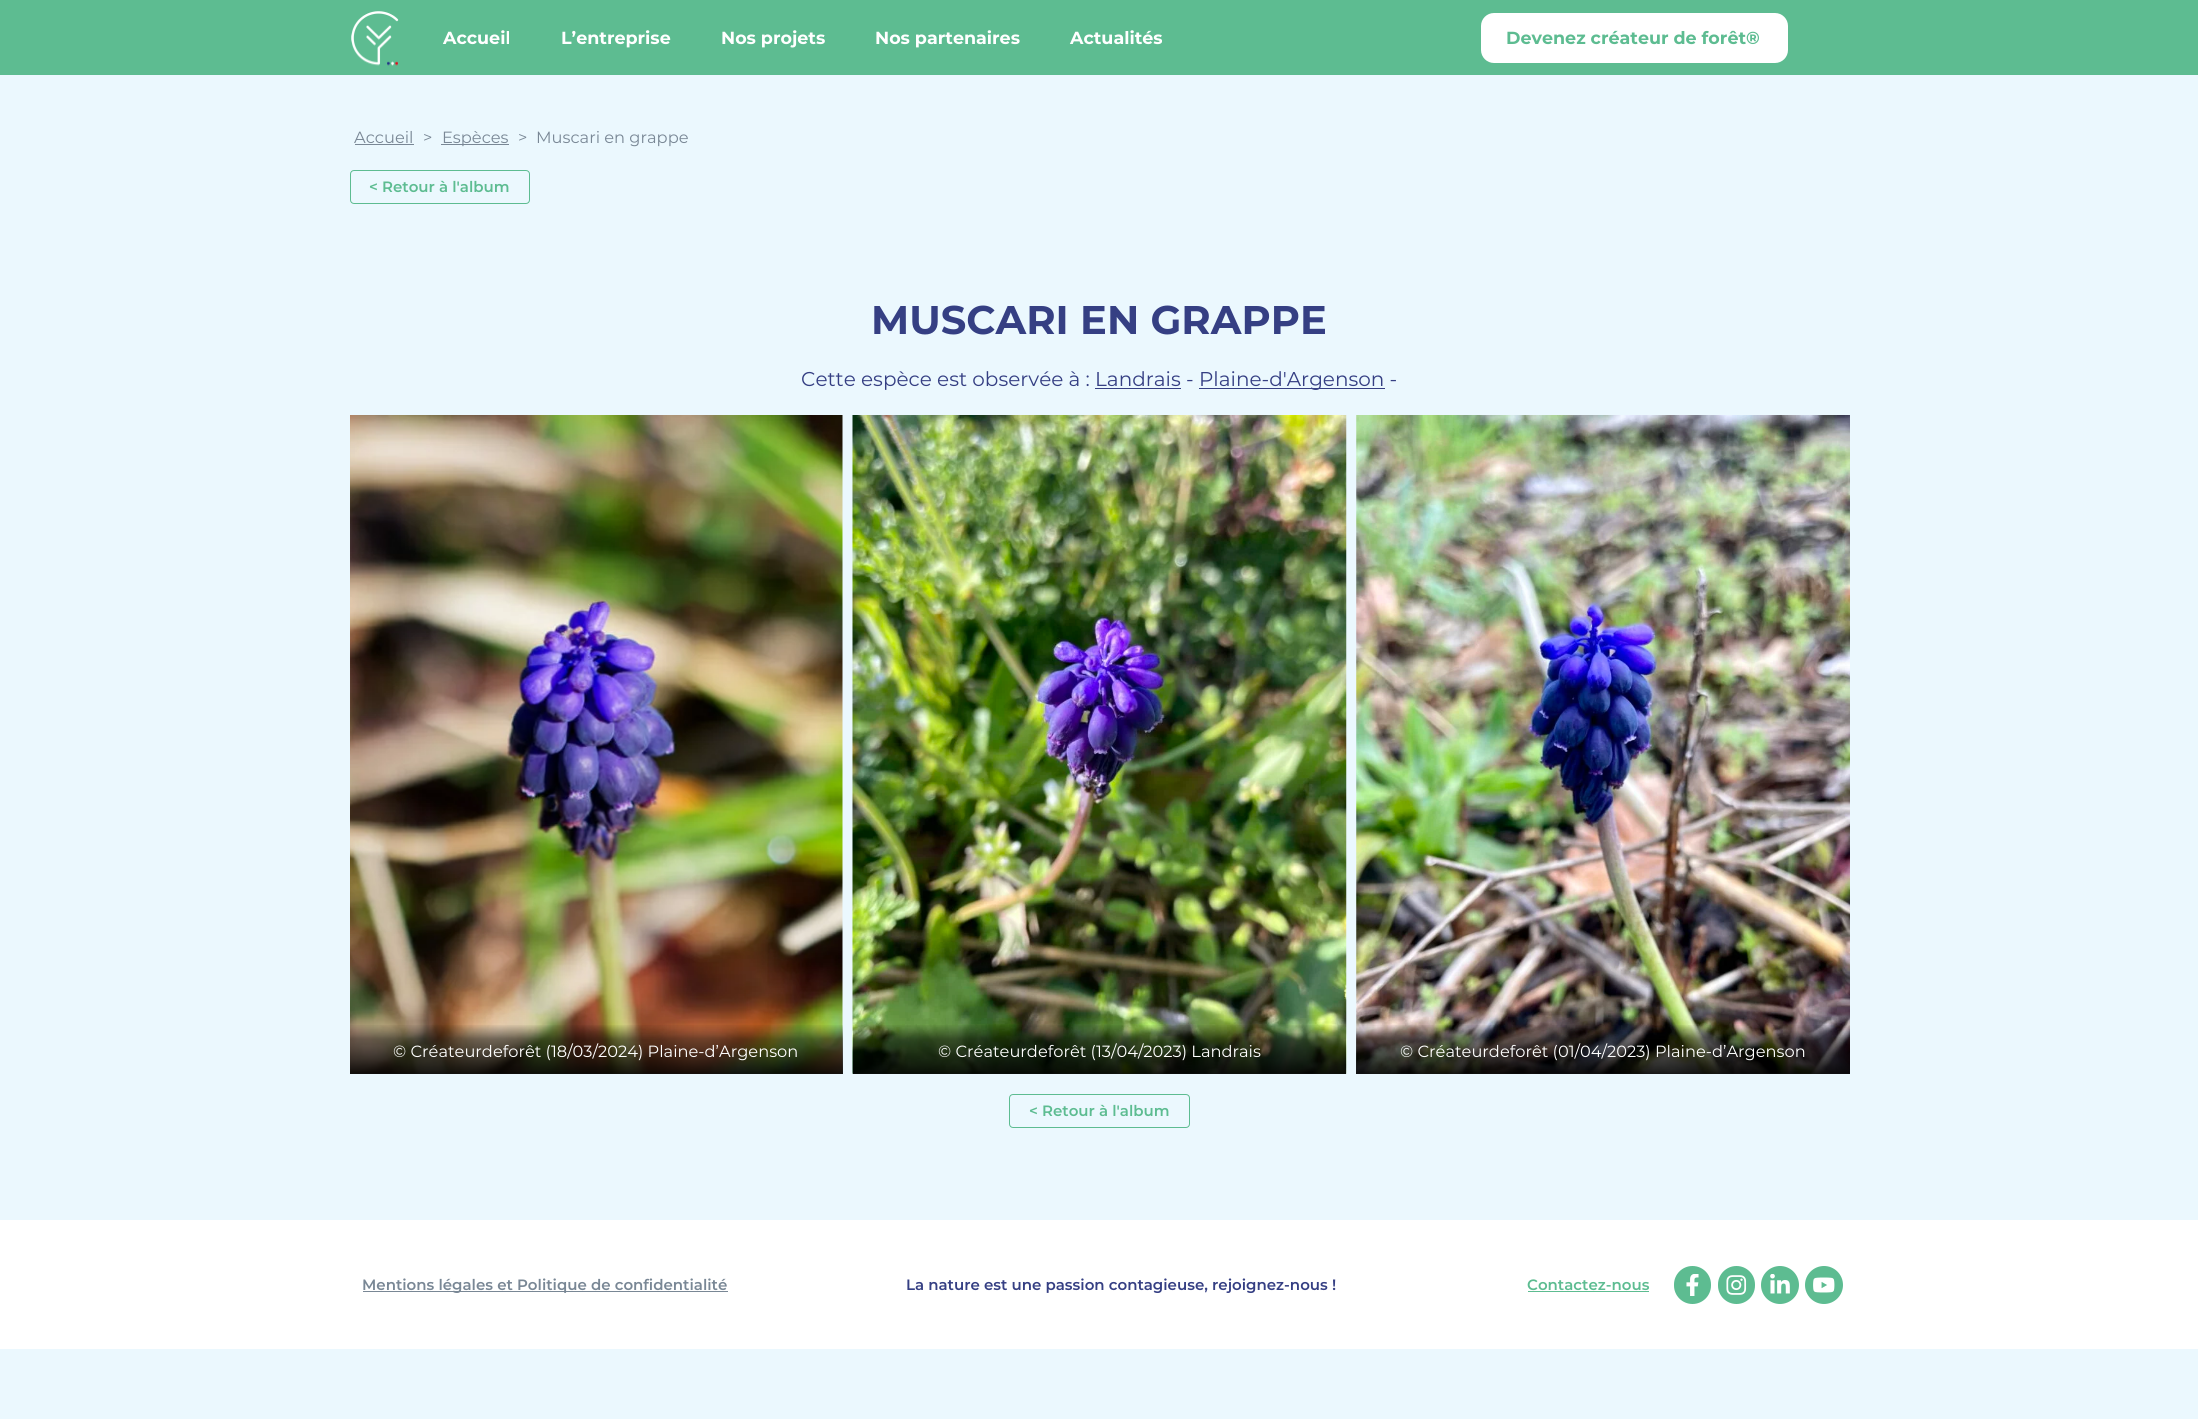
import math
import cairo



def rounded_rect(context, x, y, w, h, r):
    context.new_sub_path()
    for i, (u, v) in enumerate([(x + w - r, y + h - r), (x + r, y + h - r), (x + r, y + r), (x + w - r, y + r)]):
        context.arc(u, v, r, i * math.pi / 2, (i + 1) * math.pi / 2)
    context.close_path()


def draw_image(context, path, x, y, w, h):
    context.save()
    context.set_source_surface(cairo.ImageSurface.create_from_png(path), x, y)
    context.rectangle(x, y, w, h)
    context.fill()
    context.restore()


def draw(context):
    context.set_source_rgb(235 / 255, 248 / 255, 254 / 255)
    context.paint()
    context.set_source_rgb(93 / 255, 188 / 255, 145 / 255)
    context.rectangle(0, 0, 2198, 75)
    context.fill()
    draw_image(context, "images/1.png", 351, 11, 48, 55)
    context.set_source_rgb(1, 1, 1)
    rounded_rect(context, 1481, 13, 307, 50, 13)
    context.fill()
    context.set_source_rgb(121 / 255, 135 / 255, 149 / 255)
    context.rectangle(355, 144, 59, 1)
    context.fill()
    context.rectangle(441, 144, 68, 1)
    context.fill()
    rounded_rect(context, 350.5, 170.5, 179, 33, 3.5)
    context.set_source_rgb(93 / 255, 188 / 255, 145 / 255)
    context.set_line_width(1)
    context.stroke()
    context.set_source_rgb(53 / 255, 63 / 255, 131 / 255)
    context.rectangle(1199, 388, 186, 1)
    context.fill()
    context.rectangle(1095, 388, 86, 1)
    context.fill()
    draw_image(context, "images/2.png", 350, 415, 493, 659)
    gradient = cairo.LinearGradient(596, 1074, 596, 1024)
    gradient.add_color_stop_rgba(0, 0, 0, 0, 0.9)
    gradient.add_color_stop_rgba(0.7, 0, 0, 0, 0.5)
    gradient.add_color_stop_rgba(1, 0, 0, 0, 0)
    context.set_source(gradient)
    context.rectangle(350, 1025, 493, 49)
    context.fill()
    draw_image(context, "images/3.png", 852, 415, 495, 659)
    gradient = cairo.LinearGradient(1099, 1074, 1099, 1024)
    gradient.add_color_stop_rgba(0, 0, 0, 0, 0.9)
    gradient.add_color_stop_rgba(0.7, 0, 0, 0, 0.5)
    gradient.add_color_stop_rgba(1, 0, 0, 0, 0)
    context.set_source(gradient)
    context.rectangle(853, 1025, 493, 49)
    context.fill()
    draw_image(context, "images/4.png", 1356, 415, 494, 659)
    gradient = cairo.LinearGradient(1603, 1074, 1603, 1024)
    gradient.add_color_stop_rgba(0, 0, 0, 0, 0.9)
    gradient.add_color_stop_rgba(0.7, 0, 0, 0, 0.5)
    gradient.add_color_stop_rgba(1, 0, 0, 0, 0)
    context.set_source(gradient)
    context.rectangle(1356, 1025, 494, 49)
    context.fill()
    rounded_rect(context, 1009.5, 1094.5, 180, 33, 3.5)
    context.set_source_rgb(93 / 255, 188 / 255, 145 / 255)
    context.stroke()
    context.set_source_rgb(1, 1, 1)
    context.rectangle(0, 1220, 2198, 129)
    context.fill()
    context.set_source_rgb(121 / 255, 135 / 255, 149 / 255)
    context.rectangle(363, 1291, 365, 1)
    context.fill()
    context.set_source_rgb(93 / 255, 188 / 255, 145 / 255)
    context.rectangle(1528, 1291, 121, 1)
    context.fill()
    rounded_rect(context, 1674, 1266, 37, 38, 18.5)
    context.fill()
    draw_image(context, "images/5.png", 1686, 1274, 13, 22)
    rounded_rect(context, 1718, 1266, 37, 38, 18.5)
    context.fill()
    draw_image(context, "images/6.png", 1726, 1275, 21, 20)
    context.arc(1780, 1285, 19, 0, 2 * math.pi)
    context.fill()
    draw_image(context, "images/7.png", 1770, 1274, 20, 20)
    context.arc(1824, 1285, 19, 0, 2 * math.pi)
    context.fill()
    draw_image(context, "images/8.png", 1813, 1277, 22, 16)
    context.select_font_face("Montserrat", cairo.FontSlant.NORMAL, cairo.FontWeight.BOLD)
    context.set_font_size(17.5)
    context.set_source_rgb(1, 1, 1)
    context.move_to(443, 44)
    context.show_text("Accueil")
    context.move_to(561, 44)
    context.show_text("L’entreprise")
    context.move_to(721, 44)
    context.show_text("Nos projets")
    context.move_to(875, 44)
    context.show_text("Nos partenaires")
    context.move_to(1070, 44)
    context.show_text("Actualités")
    context.set_source_rgb(93 / 255, 188 / 255, 145 / 255)
    context.move_to(1506, 44)
    context.show_text("Devenez créateur de forêt®")
    context.select_font_face("Montserrat")
    context.set_font_size(16.25)
    context.set_source_rgb(121 / 255, 135 / 255, 149 / 255)
    context.move_to(354, 143)
    context.show_text("Accueil")
    context.move_to(423, 143)
    context.show_text(">")
    context.move_to(442, 143)
    context.show_text("Espèces")
    context.move_to(518, 143)
    context.show_text(">")
    context.move_to(536, 143)
    context.show_text("Muscari en grappe")
    context.select_font_face("Montserrat SemiBold")
    context.set_font_size(15)
    context.set_source_rgb(93 / 255, 188 / 255, 145 / 255)
    context.move_to(369, 192)
    context.show_text("< Retour à l'album")
    context.select_font_face("Montserrat", cairo.FontSlant.NORMAL, cairo.FontWeight.BOLD)
    context.set_font_size(40)
    context.set_source_rgb(53 / 255, 63 / 255, 131 / 255)
    context.move_to(871, 334)
    context.show_text("MUSCARI EN GRAPPE")
    context.select_font_face("Montserrat")
    context.set_font_size(20)
    context.move_to(801, 386)
    context.show_text("Cette espèce est observée à : Landrais -")
    context.move_to(1199, 386)
    context.show_text("Plaine-d'Argenson -")
    context.set_font_size(16.25)
    context.set_source_rgb(1, 1, 1)
    context.move_to(393, 1057)
    context.show_text("© Créateurdeforêt (18/03/2024) Plaine-d’Argenson")
    context.move_to(938, 1057)
    context.show_text("© Créateurdeforêt (13/04/2023) Landrais")
    context.move_to(1400, 1057)
    context.show_text("© Créateurdeforêt (01/04/2023) Plaine-d’Argenson")
    context.select_font_face("Montserrat SemiBold")
    context.set_font_size(15)
    context.set_source_rgb(93 / 255, 188 / 255, 145 / 255)
    context.move_to(1029, 1116)
    context.show_text("< Retour à l'album")
    context.set_source_rgb(121 / 255, 135 / 255, 149 / 255)
    context.move_to(362, 1290)
    context.show_text("Mentions légales et Politique de confidentialité")
    context.set_source_rgb(53 / 255, 63 / 255, 131 / 255)
    context.move_to(906, 1290)
    context.show_text("La nature est une passion contagieuse, rejoignez-nous !")
    context.set_source_rgb(93 / 255, 188 / 255, 145 / 255)
    context.move_to(1527, 1290)
    context.show_text("Contactez-nous")


surface = cairo.ImageSurface(cairo.Format.RGB24, 2198, 1419)
context = cairo.Context(surface)
options = cairo.FontOptions()
options.set_hint_metrics(cairo.HintMetrics.OFF)
options.set_hint_style(cairo.HintStyle.NONE)
context.set_font_options(options)
context.set_miter_limit(4)
draw(context)
surface.write_to_png("out.png")
